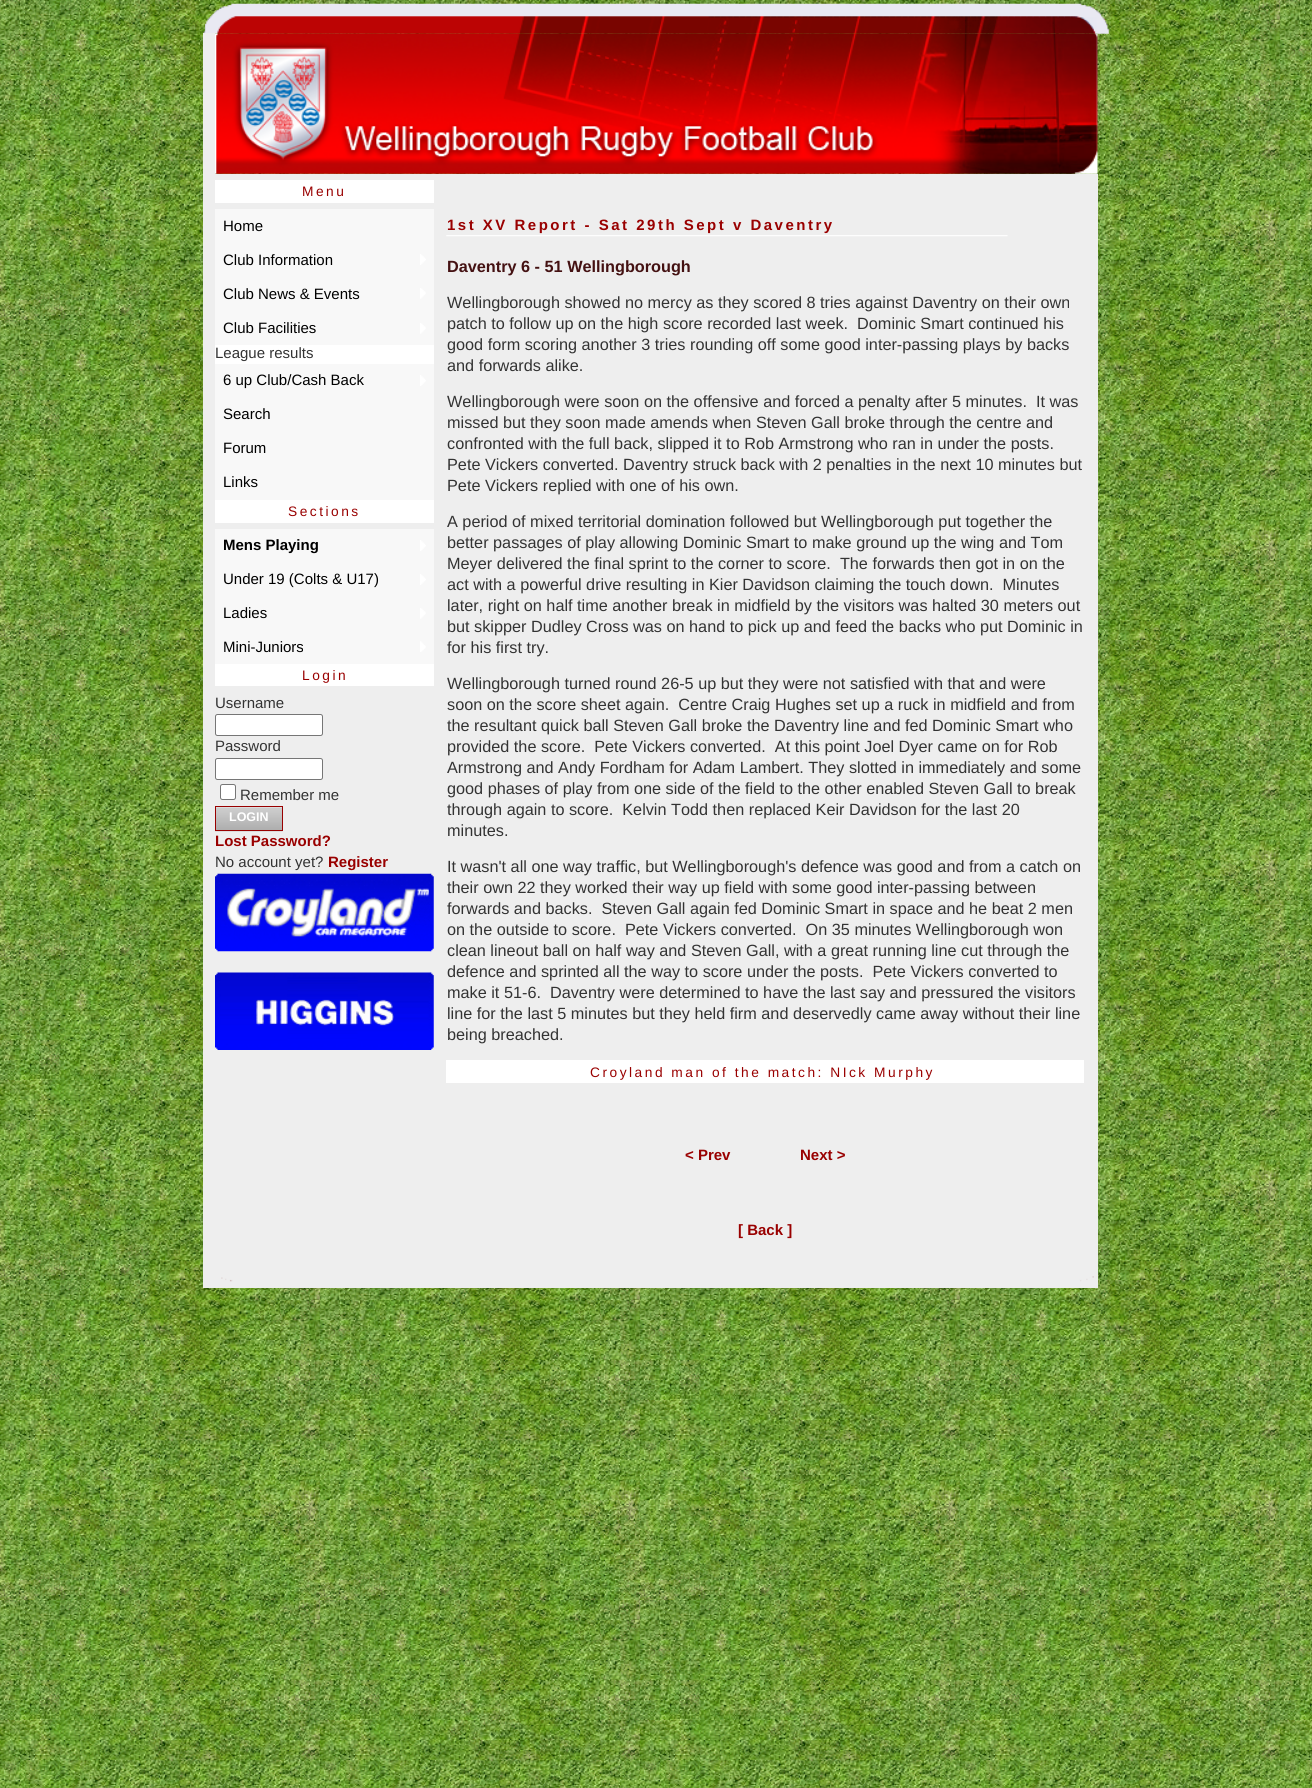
import math
import cairo



def draw_spaced(context, x, y, s, letter, word):
    context.move_to(x, y)
    for ch in s:
        context.show_text(ch)
        context.rel_move_to(letter + word * (ch == ' '), 0)


def rounded_rect(context, x, y, w, h, r):
    context.new_sub_path()
    for i, (u, v) in enumerate([(x + w - r, y + h - r), (x + r, y + h - r), (x + r, y + r), (x + w - r, y + r)]):
        context.arc(u, v, r, i * math.pi / 2, (i + 1) * math.pi / 2)
    context.close_path()


def draw_image(context, path, x, y, w, h):
    context.save()
    context.set_source_surface(cairo.ImageSurface.create_from_png(path), x, y)
    context.rectangle(x, y, w, h)
    context.fill()
    context.restore()


def draw(context):
    context.set_source_rgb(1, 1, 1)
    context.paint()
    draw_image(context, "images/1.png", 0, 0, 1312, 1788)
    draw_image(context, "images/2.png", 203, 3, 906, 31)
    context.set_source_rgb(238 / 255, 238 / 255, 238 / 255)
    context.rectangle(203, 33, 12, 1255)
    context.fill()
    draw_image(context, "images/3.png", 215, 33, 883, 141)
    context.rectangle(215, 174, 883, 1114)
    context.fill()
    context.set_source_rgb(1, 1, 1)
    context.rectangle(215, 180, 219, 23)
    context.fill()
    context.set_source_rgb(248 / 255, 248 / 255, 248 / 255)
    context.rectangle(215, 209, 219, 136)
    context.fill()
    draw_image(context, "images/4.png", 420, 254, 6, 11)
    draw_image(context, "images/5.png", 420, 288, 6, 11)
    draw_image(context, "images/6.png", 420, 323, 6, 11)
    context.set_source_rgb(1, 1, 1)
    context.rectangle(215, 345, 219, 178)
    context.fill()
    context.set_source_rgb(248 / 255, 248 / 255, 248 / 255)
    context.rectangle(215, 364, 219, 136)
    context.fill()
    draw_image(context, "images/7.png", 420, 375, 6, 11)
    context.rectangle(215, 529, 219, 135)
    context.fill()
    draw_image(context, "images/7.png", 420, 540, 6, 11)
    draw_image(context, "images/4.png", 420, 574, 6, 11)
    draw_image(context, "images/6.png", 420, 608, 6, 11)
    draw_image(context, "images/8.png", 420, 641, 6, 11)
    context.set_source_rgb(1, 1, 1)
    context.rectangle(215, 664, 219, 22)
    context.fill()
    rounded_rect(context, 215.5, 714.5, 107, 21, 2)
    context.fill_preserve()
    context.set_source_rgb(118 / 255, 118 / 255, 118 / 255)
    context.set_line_width(1)
    context.stroke()
    context.set_source_rgb(1, 1, 1)
    rounded_rect(context, 215.5, 758.5, 107, 21, 2)
    context.fill_preserve()
    context.set_source_rgb(118 / 255, 118 / 255, 118 / 255)
    context.stroke()
    context.set_source_rgb(1, 1, 1)
    rounded_rect(context, 220.5, 784.5, 15, 15, 2)
    context.fill_preserve()
    context.set_source_rgb(118 / 255, 118 / 255, 118 / 255)
    context.stroke()
    draw_image(context, "images/9.png", 215, 807, 68, 25)
    context.rectangle(215.5, 806.5, 67, 24)
    context.set_source_rgb(153 / 255, 0, 0)
    context.stroke()
    draw_image(context, "images/10.png", 215, 873, 219, 79)
    draw_image(context, "images/11.png", 215, 972, 219, 78)
    draw_image(context, "images/12.png", 446, 235, 562, 2)
    context.set_source_rgb(1, 1, 1)
    context.rectangle(446, 1060, 638, 23)
    context.fill()
    draw_image(context, "images/13.png", 221, 1276, 873, 6)
    context.select_font_face("Liberation Sans")
    context.set_font_size(13.75)
    context.set_source_rgb(153 / 255, 0, 0)
    draw_spaced(context, 302, 196, "Menu", 2.5, 0)
    context.set_font_size(15)
    context.set_source_rgb(0, 0, 0)
    context.move_to(223, 231)
    context.show_text("Home")
    context.move_to(223, 265)
    context.show_text("Club Information")
    context.move_to(223, 299)
    context.show_text("Club News & Events")
    context.move_to(223, 333)
    context.show_text("Club Facilities")
    context.set_source_rgb(51 / 255, 51 / 255, 51 / 255)
    context.move_to(215, 358)
    context.show_text("League results")
    context.set_source_rgb(0, 0, 0)
    context.move_to(223, 385)
    context.show_text("6 up Club/Cash Back")
    context.move_to(223, 419)
    context.show_text("Search")
    context.move_to(223, 453)
    context.show_text("Forum")
    context.move_to(223, 487)
    context.show_text("Links")
    context.set_font_size(13.75)
    context.set_source_rgb(153 / 255, 0, 0)
    draw_spaced(context, 288, 516, "Sections", 2.5, 0)
    context.select_font_face("Liberation Sans", cairo.FontSlant.NORMAL, cairo.FontWeight.BOLD)
    context.set_font_size(15)
    context.set_source_rgb(0, 0, 0)
    context.move_to(223, 550)
    context.show_text("Mens Playing")
    context.select_font_face("Liberation Sans")
    context.move_to(223, 584)
    context.show_text("Under 19 (Colts & U17)")
    context.move_to(223, 618)
    context.show_text("Ladies")
    context.move_to(223, 652)
    context.show_text("Mini-Juniors")
    context.set_font_size(13.75)
    context.set_source_rgb(153 / 255, 0, 0)
    draw_spaced(context, 302, 680, "Login", 2.5, 0)
    context.set_font_size(15)
    context.set_source_rgb(51 / 255, 51 / 255, 51 / 255)
    context.move_to(215, 708)
    context.show_text("Username")
    context.move_to(215, 751)
    context.show_text("Password")
    context.move_to(240, 800)
    context.show_text("Remember me")
    context.select_font_face("Liberation Sans", cairo.FontSlant.NORMAL, cairo.FontWeight.BOLD)
    context.set_font_size(12.5)
    context.set_source_rgb(1, 1, 1)
    context.move_to(229, 821)
    context.show_text("LOGIN")
    context.set_font_size(15)
    context.set_source_rgb(153 / 255, 0, 0)
    context.move_to(215, 846)
    context.show_text("Lost Password?")
    context.select_font_face("Liberation Sans")
    context.set_source_rgb(51 / 255, 51 / 255, 51 / 255)
    context.move_to(215, 867)
    context.show_text("No account yet?")
    context.select_font_face("Liberation Sans", cairo.FontSlant.NORMAL, cairo.FontWeight.BOLD)
    context.set_source_rgb(153 / 255, 0, 0)
    context.move_to(328, 867)
    context.show_text("Register")
    draw_spaced(context, 447, 230, "1st XV Report - Sat 29th Sept v Daventry", 2.5, 0)
    context.set_font_size(16.25)
    context.set_source_rgb(68 / 255, 17 / 255, 18 / 255)
    context.move_to(447, 272)
    context.show_text("Daventry 6 - 51 Wellingborough")
    context.select_font_face("Liberation Sans")
    context.set_source_rgb(51 / 255, 51 / 255, 51 / 255)
    context.move_to(447, 308)
    context.show_text("Wellingborough showed no mercy as they scored 8 tries against Daventry on their own")
    context.move_to(447, 329)
    context.show_text("patch to follow up on the high score recorded last week.  Dominic Smart continued his")
    context.move_to(447, 350)
    context.show_text("good form scoring another 3 tries rounding off some good inter-passing plays by backs")
    context.move_to(447, 371)
    context.show_text("and forwards alike.")
    context.move_to(447, 407)
    context.show_text("Wellingborough were soon on the offensive and forced a penalty after 5 minutes.  It was")
    context.move_to(447, 428)
    context.show_text("missed but they soon made amends when Steven Gall broke through the centre and")
    context.move_to(447, 449)
    context.show_text("confronted with the full back, slipped it to Rob Armstrong who ran in under the posts.")
    context.move_to(447, 470)
    context.show_text("Pete Vickers converted. Daventry struck back with 2 penalties in the next 10 minutes but")
    context.move_to(447, 491)
    context.show_text("Pete Vickers replied with one of his own.")
    context.move_to(447, 527)
    context.show_text("A period of mixed territorial domination followed but Wellingborough put together the")
    context.move_to(447, 548)
    context.show_text("better passages of play allowing Dominic Smart to make ground up the wing and Tom")
    context.move_to(447, 569)
    context.show_text("Meyer delivered the final sprint to the corner to score.  The forwards then got in on the")
    context.move_to(447, 590)
    context.show_text("act with a powerful drive resulting in Kier Davidson claiming the touch down.  Minutes")
    context.move_to(447, 611)
    context.show_text("later, right on half time another break in midfield by the visitors was halted 30 meters out")
    context.move_to(447, 632)
    context.show_text("but skipper Dudley Cross was on hand to pick up and feed the backs who put Dominic in")
    context.move_to(447, 653)
    context.show_text("for his first try.")
    context.move_to(447, 689)
    context.show_text("Wellingborough turned round 26-5 up but they were not satisfied with that and were")
    context.move_to(447, 710)
    context.show_text("soon on the score sheet again.  Centre Craig Hughes set up a ruck in midfield and from")
    context.move_to(447, 731)
    context.show_text("the resultant quick ball Steven Gall broke the Daventry line and fed Dominic Smart who")
    context.move_to(447, 752)
    context.show_text("provided the score.  Pete Vickers converted.  At this point Joel Dyer came on for Rob")
    context.move_to(447, 773)
    context.show_text("Armstrong and Andy Fordham for Adam Lambert. They slotted in immediately and some")
    context.move_to(447, 794)
    context.show_text("good phases of play from one side of the field to the other enabled Steven Gall to break")
    context.move_to(447, 815)
    context.show_text("through again to score.  Kelvin Todd then replaced Keir Davidson for the last 20")
    context.move_to(447, 836)
    context.show_text("minutes.")
    context.move_to(447, 872)
    context.show_text("It wasn't all one way traffic, but Wellingborough's defence was good and from a catch on")
    context.move_to(447, 893)
    context.show_text("their own 22 they worked their way up field with some good inter-passing between")
    context.move_to(447, 914)
    context.show_text("forwards and backs.  Steven Gall again fed Dominic Smart in space and he beat 2 men")
    context.move_to(447, 935)
    context.show_text("on the outside to score.  Pete Vickers converted.  On 35 minutes Wellingborough won")
    context.move_to(447, 956)
    context.show_text("clean lineout ball on half way and Steven Gall, with a great running line cut through the")
    context.move_to(447, 977)
    context.show_text("defence and sprinted all the way to score under the posts.  Pete Vickers converted to")
    context.move_to(447, 998)
    context.show_text("make it 51-6.  Daventry were determined to have the last say and pressured the visitors")
    context.move_to(447, 1019)
    context.show_text("line for the last 5 minutes but they held firm and deservedly came away without their line")
    context.move_to(447, 1040)
    context.show_text("being breached.")
    context.set_font_size(13.75)
    context.set_source_rgb(153 / 255, 0, 0)
    draw_spaced(context, 590, 1077, "Croyland man of the match: NIck Murphy", 2.5, 0)
    context.select_font_face("Liberation Sans", cairo.FontSlant.NORMAL, cairo.FontWeight.BOLD)
    context.set_font_size(15)
    context.move_to(685, 1160)
    context.show_text("< Prev")
    context.move_to(800, 1160)
    context.show_text("Next >")
    context.move_to(738, 1235)
    context.show_text("[ Back ]")


surface = cairo.ImageSurface(cairo.Format.RGB24, 1312, 1788)
context = cairo.Context(surface)
options = cairo.FontOptions()
options.set_hint_metrics(cairo.HintMetrics.OFF)
options.set_hint_style(cairo.HintStyle.NONE)
context.set_font_options(options)
context.set_miter_limit(4)
draw(context)
surface.write_to_png("out.png")
